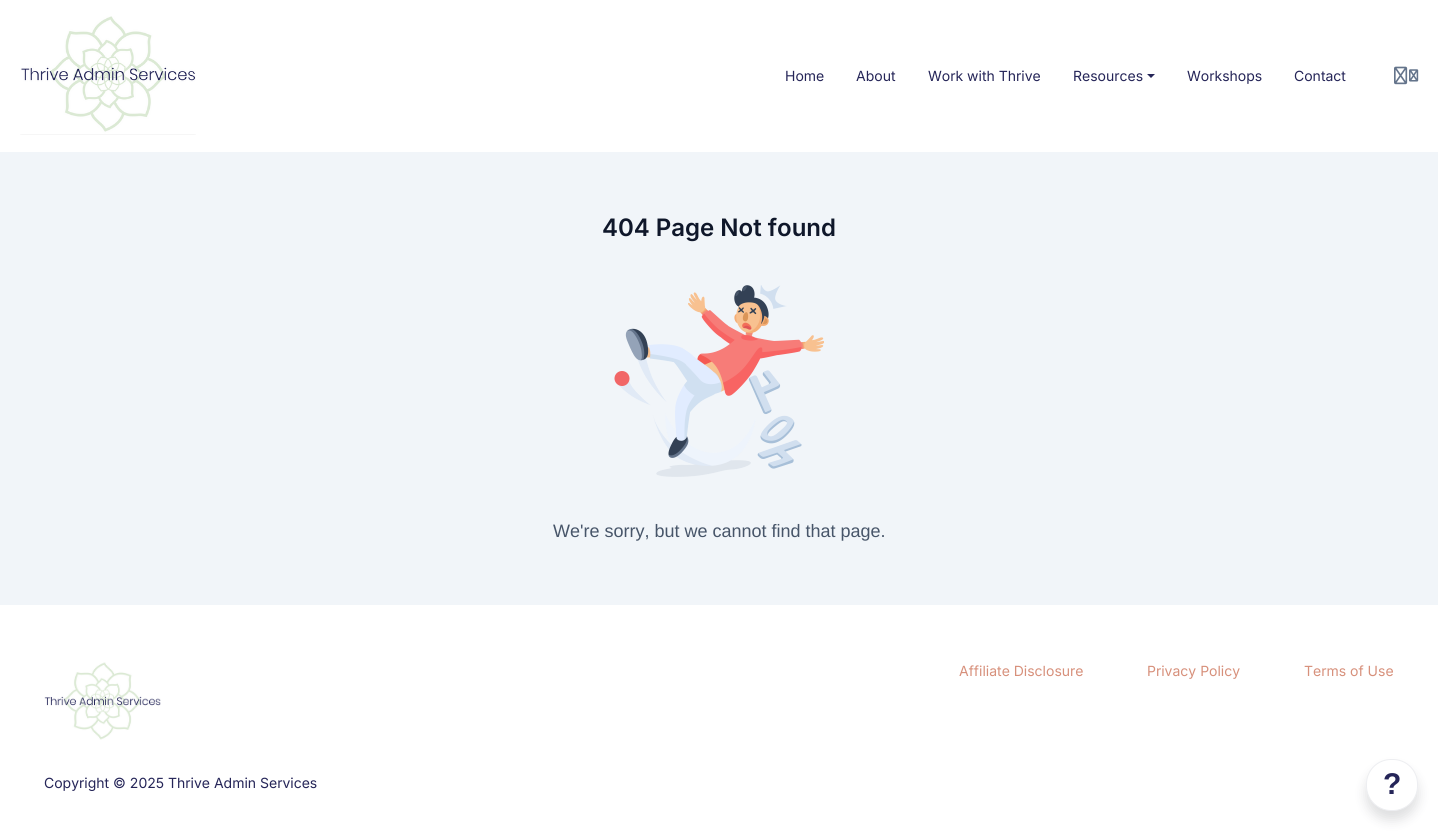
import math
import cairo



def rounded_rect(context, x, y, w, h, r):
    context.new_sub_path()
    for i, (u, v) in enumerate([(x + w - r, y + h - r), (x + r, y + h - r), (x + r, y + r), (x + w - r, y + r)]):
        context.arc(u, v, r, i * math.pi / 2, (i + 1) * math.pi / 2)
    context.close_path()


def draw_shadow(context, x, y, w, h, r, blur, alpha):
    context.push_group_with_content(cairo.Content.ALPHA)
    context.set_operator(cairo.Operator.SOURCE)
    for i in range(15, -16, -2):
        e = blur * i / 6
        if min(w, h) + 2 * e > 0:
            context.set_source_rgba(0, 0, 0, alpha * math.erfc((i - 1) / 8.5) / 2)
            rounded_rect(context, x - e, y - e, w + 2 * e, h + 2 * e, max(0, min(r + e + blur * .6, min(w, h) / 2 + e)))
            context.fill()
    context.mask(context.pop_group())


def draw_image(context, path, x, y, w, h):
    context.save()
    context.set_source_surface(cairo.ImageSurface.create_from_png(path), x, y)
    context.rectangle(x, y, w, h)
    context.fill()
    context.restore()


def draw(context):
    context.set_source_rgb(241 / 255, 245 / 255, 249 / 255)
    context.paint()
    context.set_source_rgb(1, 1, 1)
    context.rectangle(0, 0, 1438, 152)
    context.fill()
    draw_image(context, "images/1.png", 20, 16, 176, 119)
    context.set_source_rgb(37 / 255, 37 / 255, 88 / 255)
    context.new_path()
    context.move_to(1147, 74)
    context.line_to(1155, 74)
    context.line_to(1151, 78)
    context.close_path()
    context.fill()
    draw_image(context, "images/2.png", 1394, 66, 14, 19)
    draw_image(context, "images/3.png", 1409, 69, 10, 13)
    draw_image(context, "images/4.png", 614, 285, 210, 192)
    context.set_source_rgb(1, 1, 1)
    context.rectangle(0, 605, 1438, 226)
    context.fill()
    draw_image(context, "images/5.png", 44, 662, 117, 78)
    context.set_source_rgb(34 / 255, 38 / 255, 47 / 255)
    draw_shadow(context, 1366, 768, 52, 52, 25, 6, 0.15)
    context.set_source_rgb(1, 1, 1)
    rounded_rect(context, 1366.5, 759.5, 51, 51, 24.5)
    context.fill_preserve()
    context.set_source_rgb(237 / 255, 238 / 255, 241 / 255)
    context.set_line_width(1)
    context.stroke()
    context.select_font_face("Inter")
    context.set_font_size(14)
    context.set_source_rgb(37 / 255, 37 / 255, 88 / 255)
    context.move_to(785, 81)
    context.show_text("Home")
    context.move_to(856, 81)
    context.show_text("About")
    context.move_to(928, 81)
    context.show_text("Work with Thrive")
    context.move_to(1073, 81)
    context.show_text("Resources")
    context.move_to(1187, 81)
    context.show_text("Workshops")
    context.move_to(1294, 81)
    context.show_text("Contact")
    context.select_font_face("Inter SemiBold")
    context.set_font_size(24)
    context.set_source_rgb(15 / 255, 23 / 255, 42 / 255)
    context.move_to(602, 236)
    context.show_text("404 Page Not found")
    context.select_font_face("Liberation Sans")
    context.set_font_size(18)
    context.set_source_rgb(71 / 255, 85 / 255, 105 / 255)
    context.move_to(553, 537)
    context.show_text("We're sorry, but we cannot find that page.")
    context.select_font_face("Inter")
    context.set_font_size(14)
    context.set_source_rgb(215 / 255, 144 / 255, 123 / 255)
    context.move_to(959, 676)
    context.show_text("Affiliate Disclosure")
    context.move_to(1147, 676)
    context.show_text("Privacy Policy")
    context.move_to(1304, 676)
    context.show_text("Terms of Use")
    context.set_source_rgb(37 / 255, 37 / 255, 88 / 255)
    context.move_to(44, 788)
    context.show_text("Copyright © 2025 Thrive Admin Services")
    context.select_font_face("Liberation Sans", cairo.FontSlant.NORMAL, cairo.FontWeight.BOLD)
    context.set_font_size(30)
    context.move_to(1383, 794)
    context.show_text("?")


surface = cairo.ImageSurface(cairo.Format.RGB24, 1438, 831)
context = cairo.Context(surface)
options = cairo.FontOptions()
options.set_hint_metrics(cairo.HintMetrics.OFF)
options.set_hint_style(cairo.HintStyle.NONE)
context.set_font_options(options)
context.set_miter_limit(4)
draw(context)
surface.write_to_png("out.png")
